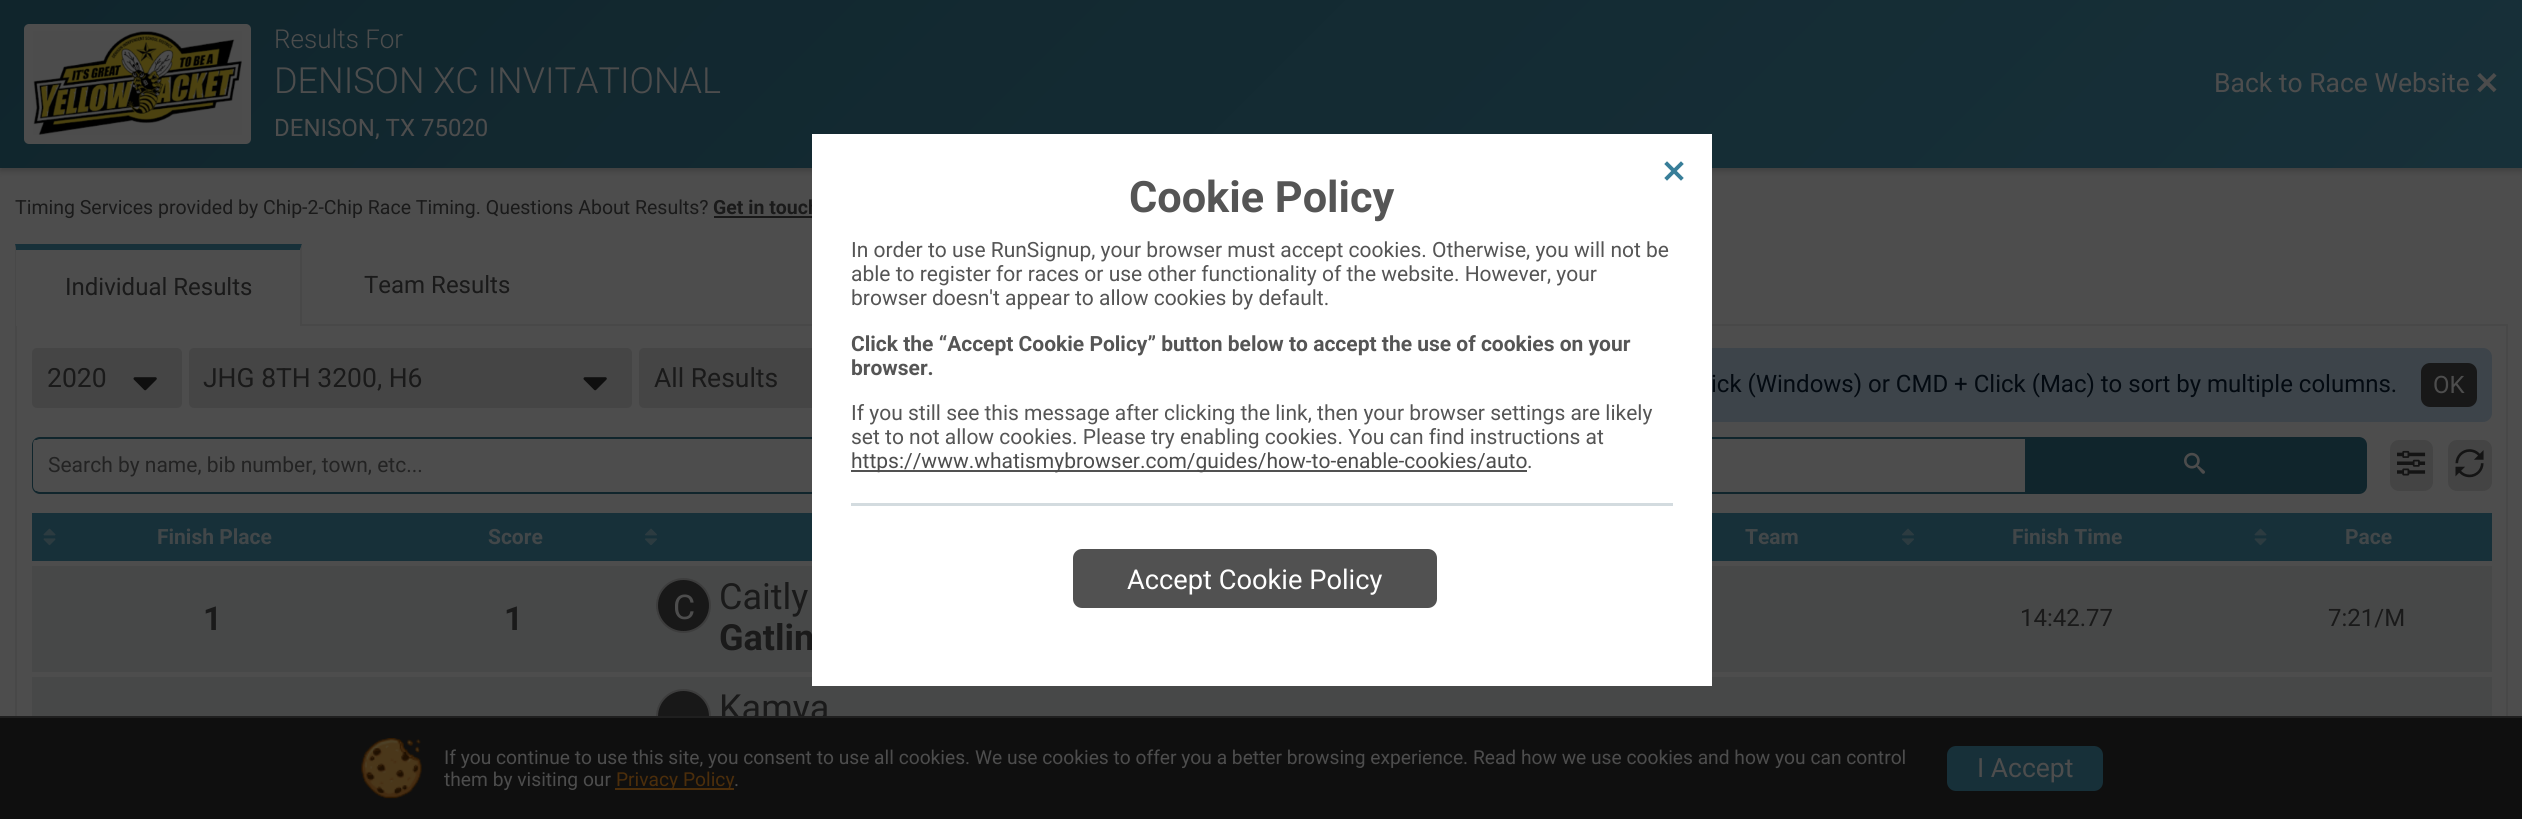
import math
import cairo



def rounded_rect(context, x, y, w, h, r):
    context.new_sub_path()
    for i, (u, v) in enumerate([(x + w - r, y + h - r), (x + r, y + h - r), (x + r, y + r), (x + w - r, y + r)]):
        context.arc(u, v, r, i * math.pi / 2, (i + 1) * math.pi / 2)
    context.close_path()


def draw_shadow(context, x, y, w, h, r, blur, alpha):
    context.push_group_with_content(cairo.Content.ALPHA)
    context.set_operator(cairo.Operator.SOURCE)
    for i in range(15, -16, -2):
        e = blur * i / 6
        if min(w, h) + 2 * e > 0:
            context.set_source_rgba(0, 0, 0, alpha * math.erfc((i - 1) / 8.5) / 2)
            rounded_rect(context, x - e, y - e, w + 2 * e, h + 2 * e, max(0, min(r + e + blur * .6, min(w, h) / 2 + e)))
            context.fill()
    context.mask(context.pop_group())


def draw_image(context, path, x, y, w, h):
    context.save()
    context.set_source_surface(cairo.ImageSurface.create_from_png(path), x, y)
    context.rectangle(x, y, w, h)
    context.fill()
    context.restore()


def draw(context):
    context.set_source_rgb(77 / 255, 77 / 255, 77 / 255)
    context.paint()
    context.set_source_rgb(0, 0, 0)
    draw_shadow(context, 0, 3, 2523, 168, 0, 3, 0.18)
    gradient = cairo.LinearGradient(1934, 757, 589, -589)
    gradient.add_color_stop_rgba(0, 23 / 255, 48 / 255, 57 / 255, 1)
    gradient.add_color_stop_rgba(1, 16 / 255, 37 / 255, 44 / 255, 1)
    context.set_source(gradient)
    context.rectangle(0, 0, 2522, 168)
    context.fill()
    context.set_source_rgb(77 / 255, 77 / 255, 77 / 255)
    rounded_rect(context, 24, 24, 227, 120, 5)
    context.fill()
    draw_image(context, "images/1.png", 33, 31, 209, 104)
    draw_image(context, "images/2.png", 2477, 73, 20, 20)
    context.set_source_rgb(24 / 255, 24 / 255, 24 / 255)
    context.rectangle(714, 216, 98, 2)
    context.fill()
    context.rectangle(16, 325, 2491, 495)
    context.set_source_rgb(72 / 255, 72 / 255, 72 / 255)
    context.stroke()
    context.set_source_rgb(77 / 255, 77 / 255, 77 / 255)
    context.rectangle(15, 324, 287, 2)
    context.fill()
    context.set_source_rgb(23 / 255, 48 / 255, 57 / 255)
    context.new_path()
    context.move_to(15, 244)
    context.line_to(302, 244)
    context.line_to(300, 250)
    context.line_to(16, 250)
    context.close_path()
    context.fill()
    context.set_source_rgb(72 / 255, 72 / 255, 72 / 255)
    context.new_path()
    context.move_to(302, 244)
    context.line_to(302, 326)
    context.line_to(300, 326)
    context.line_to(300, 250)
    context.close_path()
    context.fill()
    context.new_path()
    context.move_to(15, 326)
    context.line_to(15, 244)
    context.line_to(16, 250)
    context.line_to(16, 326)
    context.close_path()
    context.fill()
    context.set_source_rgb(69 / 255, 69 / 255, 69 / 255)
    rounded_rect(context, 32, 348, 150, 60, 5)
    context.fill()
    draw_image(context, "images/3.png", 133, 377, 24, 14)
    rounded_rect(context, 189, 348, 443, 60, 5)
    context.fill()
    draw_image(context, "images/3.png", 583, 377, 24, 14)
    rounded_rect(context, 639, 348, 233, 60, 5)
    context.fill()
    context.set_source_rgb(61 / 255, 68 / 255, 74 / 255)
    rounded_rect(context, 1565, 348, 927, 74, 9)
    context.fill()
    context.set_source_rgb(24 / 255, 24 / 255, 24 / 255)
    rounded_rect(context, 2421, 363, 56, 44, 9)
    context.fill()
    rounded_rect(context, 33, 438, 2333, 55, 7)
    context.set_source_rgb(16 / 255, 37 / 255, 44 / 255)
    context.stroke()
    context.save()
    rounded_rect(context, 33, 438, 2333, 54, 6)
    context.clip()
    context.set_source_rgb(77 / 255, 77 / 255, 77 / 255)
    context.rectangle(33, 440, 1992, 51)
    context.fill()
    context.restore()
    context.new_path()
    context.move_to(2025, 438)
    context.line_to(2360, 438)
    context.curve_to(2363.5, 438, 2366, 440.5, 2366, 444)
    context.line_to(2366, 486)
    context.curve_to(2366, 489.5, 2363.5, 492, 2360, 492)
    context.line_to(2025, 492)
    context.close_path()
    context.fill()
    draw_image(context, "images/4.png", 2184, 452, 21, 22)
    context.set_source_rgb(68 / 255, 68 / 255, 68 / 255)
    rounded_rect(context, 2390, 440, 43, 51, 9)
    context.fill()
    draw_image(context, "images/5.png", 2397, 450, 29, 26)
    rounded_rect(context, 2448, 440, 44, 51, 9)
    context.fill()
    draw_image(context, "images/6.png", 2455, 449, 29, 29)
    context.set_source_rgb(23 / 255, 48 / 255, 57 / 255)
    context.rectangle(32, 513, 2460, 48)
    context.fill()
    draw_image(context, "images/7.png", 43, 528, 13, 18)
    draw_image(context, "images/8.png", 645, 528, 12, 17)
    draw_image(context, "images/8.png", 1902, 528, 12, 17)
    draw_image(context, "images/7.png", 2254, 528, 13, 18)
    context.set_source_rgb(71 / 255, 72 / 255, 72 / 255)
    context.rectangle(32, 566, 2460, 106)
    context.fill()
    context.set_source_rgb(24 / 255, 24 / 255, 24 / 255)
    context.arc(683.5, 605.5, 26.5, 0, 2 * math.pi)
    context.fill_preserve()
    context.set_source_rgb(61 / 255, 61 / 255, 61 / 255)
    context.stroke()
    context.set_source_rgb(71 / 255, 72 / 255, 72 / 255)
    context.rectangle(32, 677, 2460, 39)
    context.fill()
    context.set_source_rgb(24 / 255, 24 / 255, 24 / 255)
    context.arc(683.5, 716.5, 26.5, 0, 2 * math.pi)
    context.fill_preserve()
    context.set_source_rgb(61 / 255, 61 / 255, 61 / 255)
    context.stroke()
    context.select_font_face("Roboto Light")
    context.set_font_size(26)
    context.set_source_rgb(77 / 255, 77 / 255, 77 / 255)
    context.move_to(274, 48)
    context.show_text("Results For")
    context.set_font_size(36)
    context.move_to(274, 93)
    context.show_text("DENISON XC INVITATIONAL")
    context.select_font_face("Roboto")
    context.set_font_size(24)
    context.move_to(274, 136)
    context.show_text("DENISON, TX 75020")
    context.set_font_size(26.5)
    context.move_to(2214, 92)
    context.show_text("Back to Race Website")
    context.set_font_size(19.5)
    context.set_source_rgb(26 / 255, 26 / 255, 26 / 255)
    context.move_to(15, 214)
    context.show_text("Timing Services provided by Chip-2-Chip Race Timing. Questions About Results?")
    context.select_font_face("Roboto", cairo.FontSlant.NORMAL, cairo.FontWeight.BOLD)
    context.move_to(713, 214)
    context.show_text("Get in touch")
    context.select_font_face("Roboto")
    context.set_font_size(24)
    context.move_to(65, 295)
    context.show_text("Individual Results")
    context.move_to(364, 293)
    context.show_text("Team Results")
    context.set_font_size(26.5)
    context.move_to(47, 387)
    context.show_text("2020")
    context.move_to(203, 387)
    context.show_text("JHG 8TH 3200, H6")
    context.move_to(654, 387)
    context.show_text("All Results")
    context.set_font_size(24)
    context.set_source_rgb(3 / 255, 10 / 255, 17 / 255)
    context.move_to(1711, 392)
    context.show_text("ick (Windows) or CMD + Click (Mac) to sort by multiple columns.")
    context.set_source_rgb(77 / 255, 77 / 255, 77 / 255)
    context.move_to(2433, 393)
    context.show_text("OK")
    context.set_font_size(21)
    context.set_source_rgb(35 / 255, 35 / 255, 35 / 255)
    context.move_to(48, 472)
    context.show_text("Search by name, bib number, town, etc...")
    context.select_font_face("Roboto", cairo.FontSlant.NORMAL, cairo.FontWeight.BOLD)
    context.set_source_rgb(66 / 255, 71 / 255, 73 / 255)
    context.move_to(157, 544)
    context.show_text("Finish Place")
    context.move_to(488, 544)
    context.show_text("Score")
    context.move_to(1745, 544)
    context.show_text("Team")
    context.move_to(2012, 544)
    context.show_text("Finish Time")
    context.move_to(2345, 544)
    context.show_text("Pace")
    context.set_font_size(33)
    context.set_source_rgb(26 / 255, 26 / 255, 26 / 255)
    context.move_to(203, 630)
    context.show_text("1")
    context.move_to(504, 630)
    context.show_text("1")
    context.select_font_face("Roboto")
    context.set_font_size(34)
    context.set_source_rgb(77 / 255, 77 / 255, 77 / 255)
    context.move_to(673, 619)
    context.show_text("C")
    context.set_font_size(36)
    context.set_source_rgb(26 / 255, 26 / 255, 26 / 255)
    context.move_to(719, 609)
    context.show_text("Caitly")
    context.select_font_face("Roboto", cairo.FontSlant.NORMAL, cairo.FontWeight.BOLD)
    context.move_to(719, 650)
    context.show_text("Gatlin")
    context.select_font_face("Roboto")
    context.set_font_size(24)
    context.move_to(2020, 626)
    context.show_text("14:42.77")
    context.move_to(2328, 626)
    context.show_text("7:21/M")
    context.set_font_size(36)
    context.move_to(719, 720)
    context.show_text("Kamya")
    context.rectangle(813, 135, 898, 550)
    context.set_source_rgb(1, 1, 1)
    context.stroke()
    context.rectangle(814, 136, 896, 548)
    context.fill()
    draw_image(context, "images/9.png", 1664, 161, 20, 20)
    context.select_font_face("Roboto", cairo.FontSlant.NORMAL, cairo.FontWeight.BOLD)
    context.set_font_size(43.25)
    context.set_source_rgb(85 / 255, 85 / 255, 85 / 255)
    context.move_to(1129, 212)
    context.show_text("Cookie Policy")
    context.select_font_face("Roboto")
    context.set_font_size(21)
    context.move_to(851, 257)
    context.show_text("In order to use RunSignup, your browser must accept cookies. Otherwise, you will not be")
    context.move_to(851, 281)
    context.show_text("able to register for races or use other functionality of the website. However, your")
    context.move_to(851, 305)
    context.show_text("browser doesn't appear to allow cookies by default.")
    context.select_font_face("Roboto", cairo.FontSlant.NORMAL, cairo.FontWeight.BOLD)
    context.move_to(851, 351)
    context.show_text("Click the “Accept Cookie Policy” button below to accept the use of cookies on your")
    context.move_to(851, 375)
    context.show_text("browser.")
    context.select_font_face("Roboto")
    context.move_to(851, 420)
    context.show_text("If you still see this message after clicking the link, then your browser settings are likely")
    context.move_to(851, 444)
    context.show_text("set to not allow cookies. Please try enabling cookies. You can find instructions at")
    context.set_source_rgb(81 / 255, 81 / 255, 81 / 255)
    context.rectangle(851, 470, 676, 2)
    context.fill()
    context.set_source_rgb(77 / 255, 77 / 255, 77 / 255)
    context.move_to(851, 468)
    context.show_text("https://www.whatismybrowser.com/guides/how-to-enable-cookies/auto")
    context.set_source_rgb(85 / 255, 85 / 255, 85 / 255)
    context.move_to(1527, 468)
    context.show_text(".")
    context.set_source_rgb(211 / 255, 219 / 255, 223 / 255)
    context.rectangle(851, 503, 822, 3)
    context.fill()
    context.set_source_rgb(81 / 255, 81 / 255, 81 / 255)
    rounded_rect(context, 1073, 549, 364, 59, 9)
    context.fill()
    context.set_font_size(27.25)
    context.set_source_rgb(1, 1, 1)
    context.move_to(1127, 589)
    context.show_text("Accept Cookie Policy")
    context.set_source_rgb(15 / 255, 15 / 255, 15 / 255)
    context.rectangle(0, 718, 2522, 101)
    context.fill()
    context.set_source_rgb(31 / 255, 31 / 255, 31 / 255)
    context.rectangle(0, 716, 2522, 2)
    context.fill()
    draw_image(context, "images/10.png", 361, 738, 61, 61)
    context.set_font_size(19.2)
    context.set_source_rgb(77 / 255, 77 / 255, 77 / 255)
    context.move_to(444, 764)
    context.show_text("If you continue to use this site, you consent to use all cookies. We use cookies to offer you a better browsing experience. Read how we use cookies and how you can control")
    context.move_to(444, 786)
    context.show_text("them by visiting our")
    context.set_source_rgb(76 / 255, 46 / 255, 11 / 255)
    context.rectangle(615, 788, 119, 2)
    context.fill()
    context.move_to(616, 786)
    context.show_text("Privacy Policy")
    context.set_source_rgb(77 / 255, 77 / 255, 77 / 255)
    context.move_to(734, 786)
    context.show_text(".")
    context.set_source_rgb(23 / 255, 48 / 255, 57 / 255)
    rounded_rect(context, 1947, 746, 156, 45, 9)
    context.fill()
    context.set_font_size(26.5)
    context.set_source_rgb(77 / 255, 77 / 255, 77 / 255)
    context.move_to(1977, 777)
    context.show_text("I Accept")


surface = cairo.ImageSurface(cairo.Format.RGB24, 2522, 819)
context = cairo.Context(surface)
options = cairo.FontOptions()
options.set_hint_metrics(cairo.HintMetrics.OFF)
options.set_hint_style(cairo.HintStyle.NONE)
context.set_font_options(options)
context.set_miter_limit(4)
draw(context)
surface.write_to_png("out.png")
